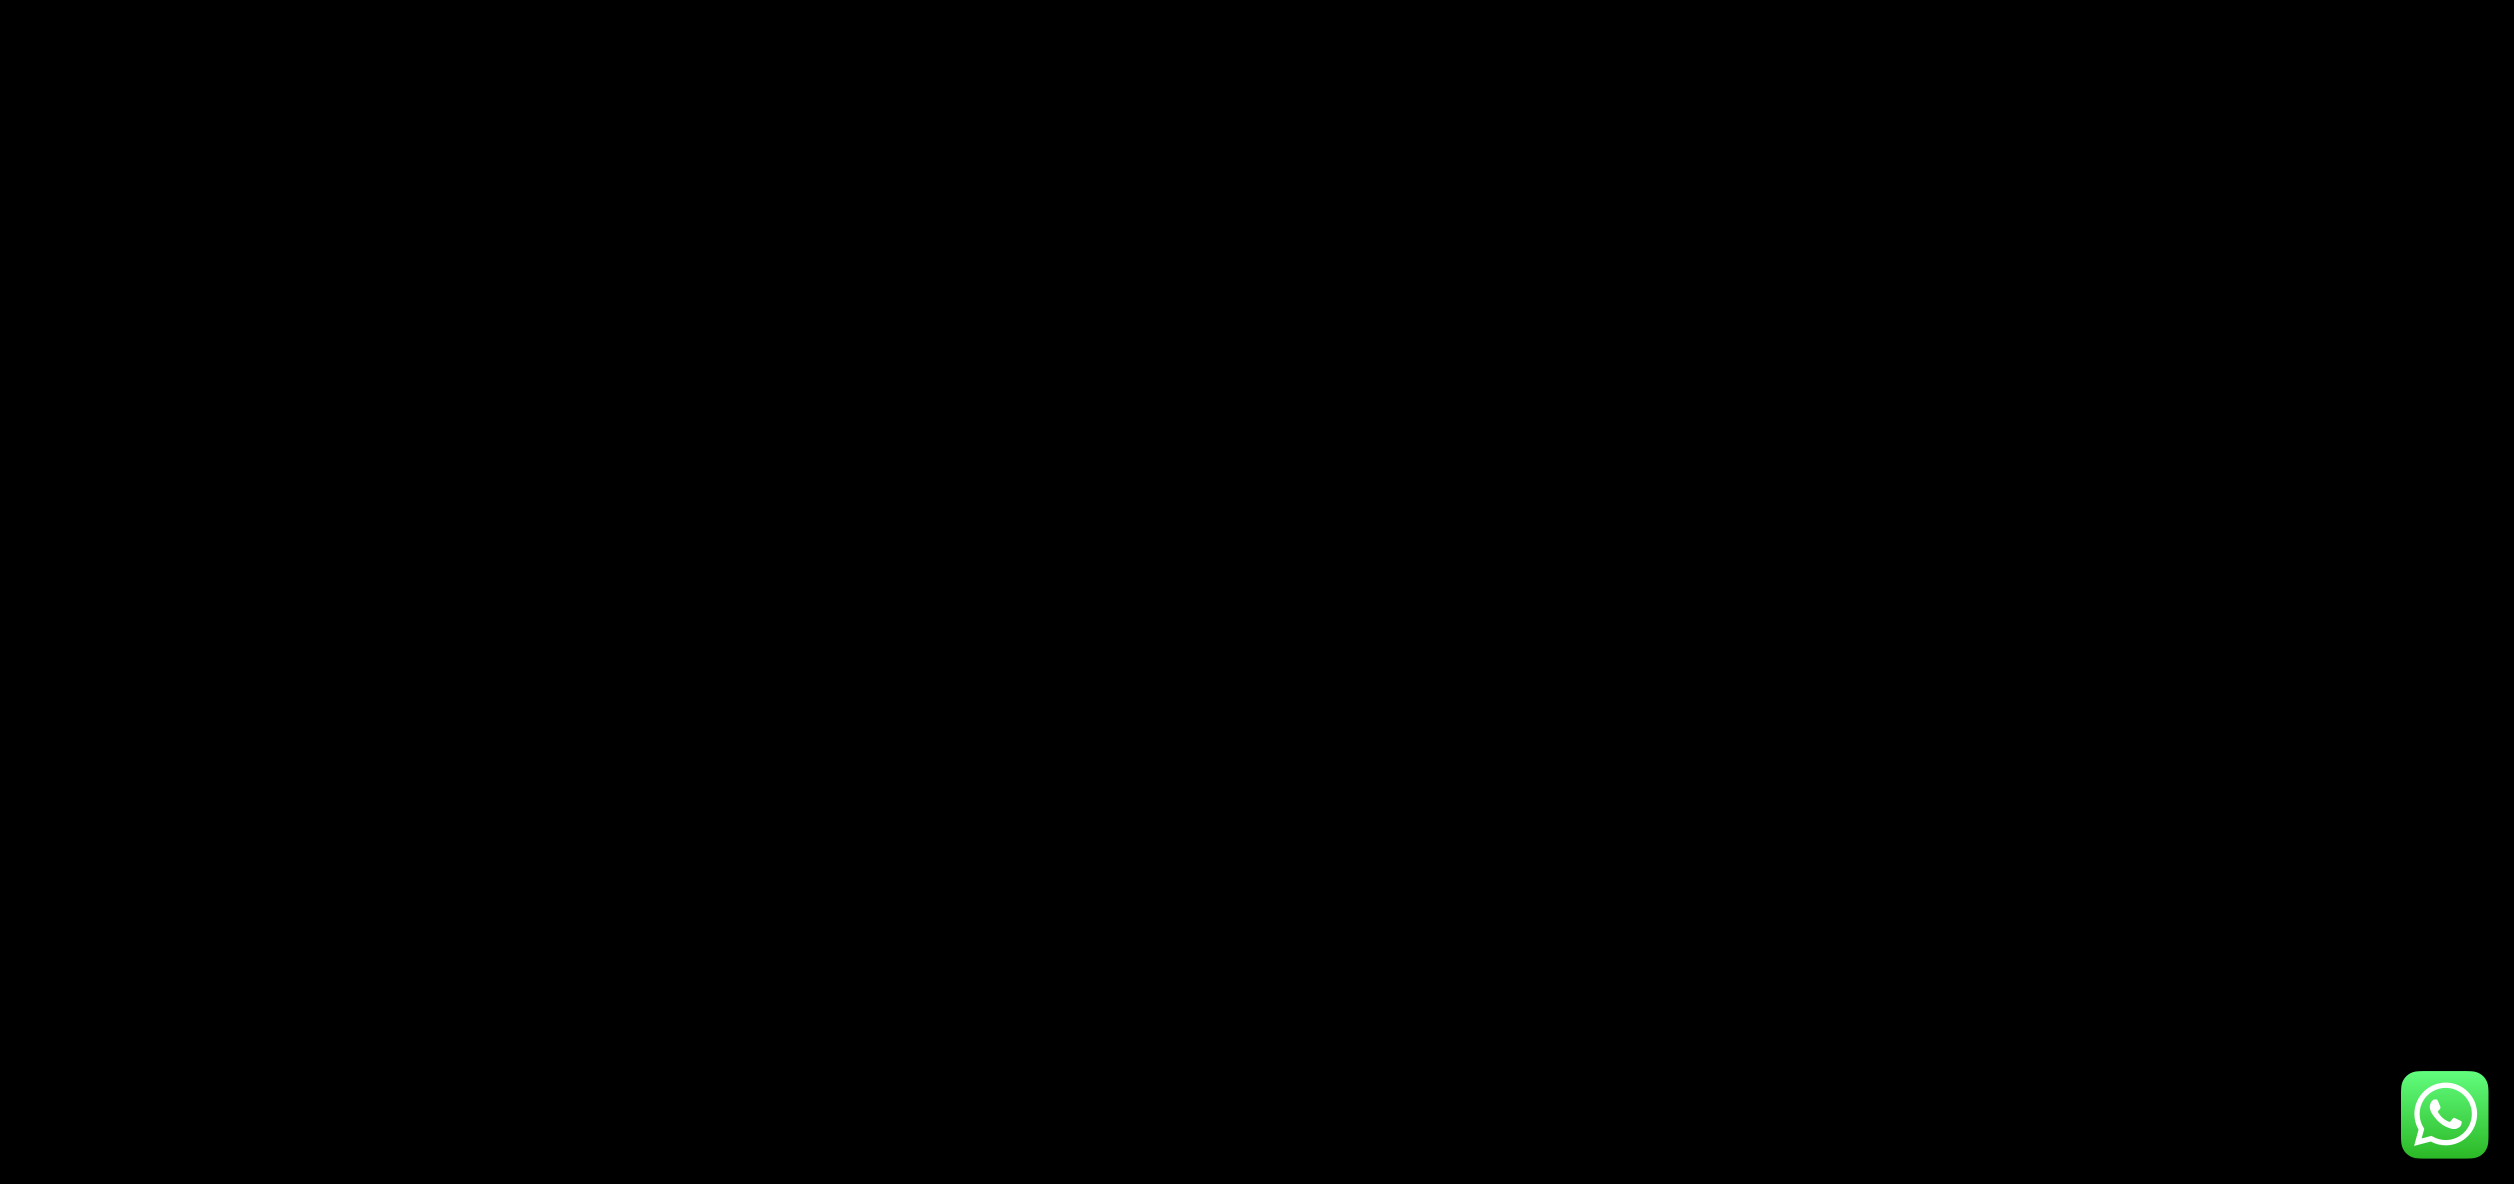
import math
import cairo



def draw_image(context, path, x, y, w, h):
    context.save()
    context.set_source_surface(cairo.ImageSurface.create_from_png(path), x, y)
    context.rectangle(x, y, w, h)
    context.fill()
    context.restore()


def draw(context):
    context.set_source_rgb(0, 0, 0)
    context.paint()
    draw_image(context, "images/1.png", 2401, 1071, 88, 88)


surface = cairo.ImageSurface(cairo.Format.RGB24, 2514, 1184)
context = cairo.Context(surface)
options = cairo.FontOptions()
options.set_hint_metrics(cairo.HintMetrics.OFF)
options.set_hint_style(cairo.HintStyle.NONE)
context.set_font_options(options)
context.set_miter_limit(4)
draw(context)
surface.write_to_png("out.png")
